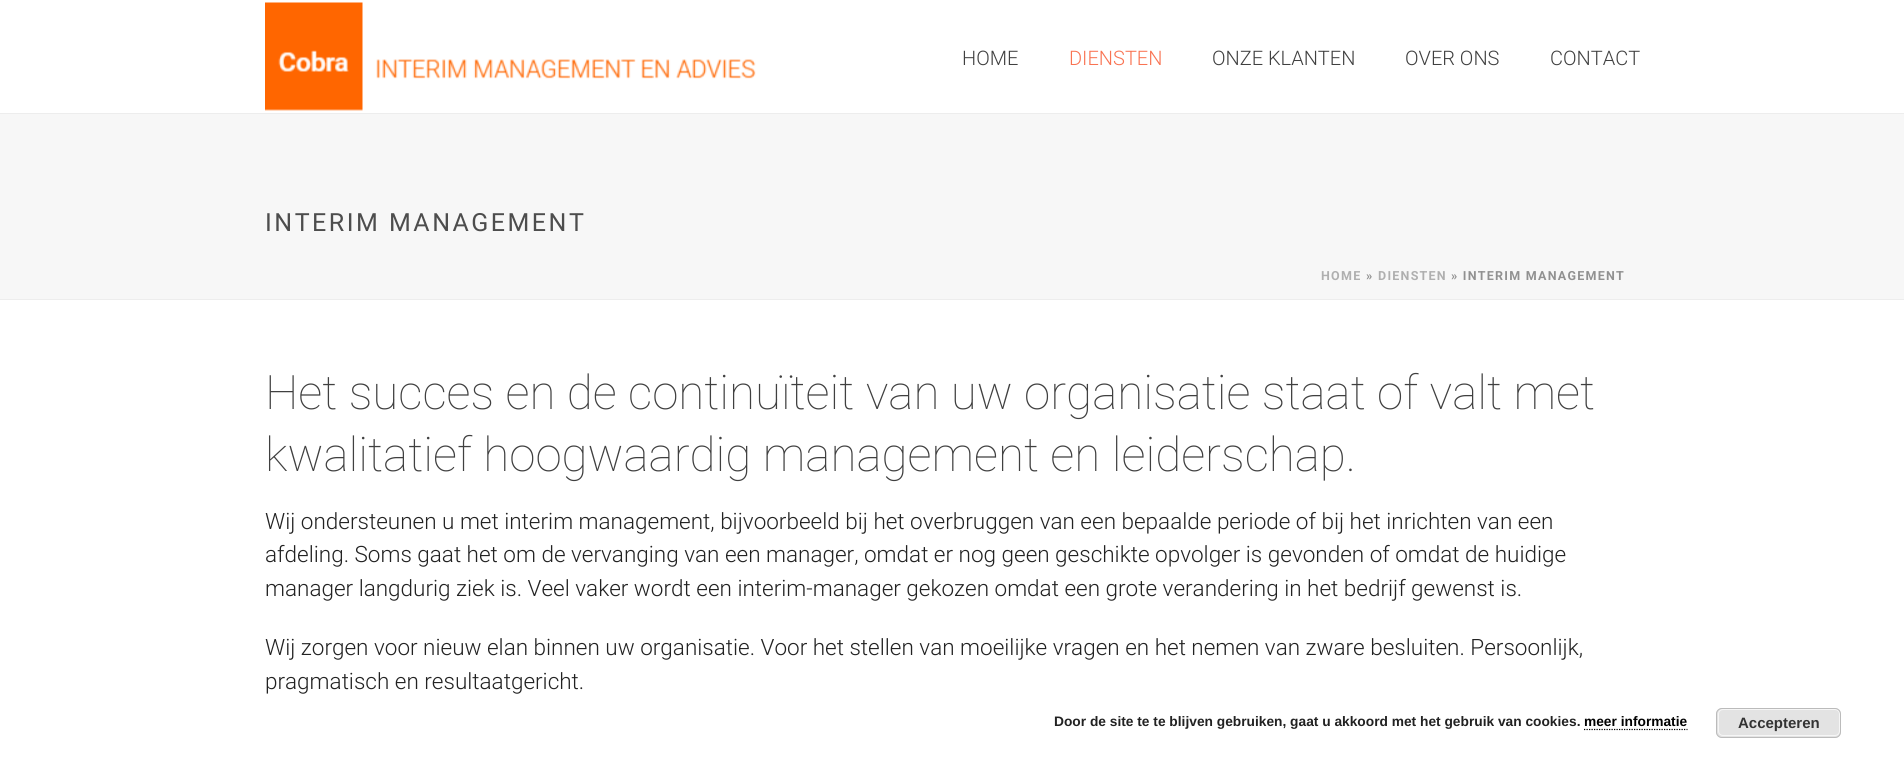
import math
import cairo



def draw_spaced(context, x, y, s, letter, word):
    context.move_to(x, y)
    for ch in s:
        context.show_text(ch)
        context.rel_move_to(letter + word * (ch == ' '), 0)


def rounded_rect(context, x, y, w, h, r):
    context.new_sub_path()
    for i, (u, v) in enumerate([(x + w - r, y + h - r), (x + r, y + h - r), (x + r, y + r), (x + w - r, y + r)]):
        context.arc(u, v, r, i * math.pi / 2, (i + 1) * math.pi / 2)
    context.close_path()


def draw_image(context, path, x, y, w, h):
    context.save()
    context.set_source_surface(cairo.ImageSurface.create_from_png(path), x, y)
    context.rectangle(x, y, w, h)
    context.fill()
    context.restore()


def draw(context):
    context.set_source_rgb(1, 1, 1)
    context.paint()
    context.set_source_rgb(247 / 255, 247 / 255, 247 / 255)
    context.rectangle(0, 114, 1904, 185)
    context.fill()
    context.set_source_rgb(237 / 255, 237 / 255, 237 / 255)
    context.rectangle(0, 299, 1904, 1)
    context.fill()
    context.rectangle(0, 113, 1904, 1)
    context.fill()
    draw_image(context, "images/1.png", 265, 2, 491, 109)
    context.new_path()
    context.move_to(1584, 729.5)
    context.line_to(1687.5, 729.5)
    context.set_source_rgb(0, 0, 0)
    context.set_line_width(1.2)
    context.set_dash([1.25, 1.25])
    context.stroke()
    context.set_source_rgb(227 / 255, 227 / 255, 227 / 255)
    rounded_rect(context, 1716, 708, 125, 30, 6)
    context.fill()
    rounded_rect(context, 1718.5, 709.5, 121, 26, 4.5)
    context.set_source_rgb(246 / 255, 246 / 255, 246 / 255)
    context.set_line_width(1)
    context.set_dash([])
    context.stroke()
    rounded_rect(context, 1716.5, 708.5, 124, 29, 5.5)
    context.set_source_rgb(187 / 255, 187 / 255, 187 / 255)
    context.stroke()
    context.select_font_face("Roboto Light")
    context.set_font_size(20)
    context.set_source_rgb(64 / 255, 64 / 255, 64 / 255)
    context.move_to(962, 65)
    context.show_text("HOME")
    context.set_source_rgb(249 / 255, 115 / 255, 82 / 255)
    context.move_to(1069, 65)
    context.show_text("DIENSTEN")
    context.set_source_rgb(64 / 255, 64 / 255, 64 / 255)
    context.move_to(1212, 65)
    context.show_text("ONZE KLANTEN")
    context.move_to(1405, 65)
    context.show_text("OVER ONS")
    context.move_to(1550, 65)
    context.show_text("CONTACT")
    context.select_font_face("Roboto")
    context.set_font_size(25)
    context.set_source_rgb(77 / 255, 77 / 255, 77 / 255)
    draw_spaced(context, 265, 231, "INTERIM MANAGEMENT", 2.5, 0)
    context.select_font_face("Roboto", cairo.FontSlant.NORMAL, cairo.FontWeight.BOLD)
    context.set_font_size(12.5)
    context.set_source_rgb(175 / 255, 175 / 255, 175 / 255)
    draw_spaced(context, 1321, 280, "HOME", 1.25, 0)
    context.set_source_rgb(145 / 255, 145 / 255, 145 / 255)
    draw_spaced(context, 1366, 280, "»", 1.25, 0)
    context.set_source_rgb(175 / 255, 175 / 255, 175 / 255)
    draw_spaced(context, 1378, 280, "DIENSTEN", 1.25, 0)
    context.set_source_rgb(145 / 255, 145 / 255, 145 / 255)
    draw_spaced(context, 1451, 280, "» INTERIM MANAGEMENT", 1.25, 0)
    context.select_font_face("Roboto Thin")
    context.set_font_size(47.5)
    context.set_source_rgb(64 / 255, 64 / 255, 64 / 255)
    context.move_to(265, 409)
    context.show_text("Het succes en de continuïteit van uw organisatie staat of valt met")
    context.move_to(265, 471)
    context.show_text("kwalitatief hoogwaardig management en leiderschap.")
    context.select_font_face("Roboto Light")
    context.set_font_size(22.5)
    context.set_source_rgb(34 / 255, 34 / 255, 34 / 255)
    context.move_to(265, 529)
    context.show_text("Wij ondersteunen u met interim management, bijvoorbeeld bij het overbruggen van een bepaalde periode of bij het inrichten van een")
    context.move_to(265, 562)
    context.show_text("afdeling. Soms gaat het om de vervanging van een manager, omdat er nog geen geschikte opvolger is gevonden of omdat de huidige")
    context.move_to(265, 596)
    context.show_text("manager langdurig ziek is. Veel vaker wordt een interim-manager gekozen omdat een grote verandering in het bedrijf gewenst is.")
    context.move_to(265, 655)
    context.show_text("Wij zorgen voor nieuw elan binnen uw organisatie. Voor het stellen van moeilijke vragen en het nemen van zware besluiten. Persoonlijk,")
    context.move_to(265, 689)
    context.show_text("pragmatisch en resultaatgericht.")
    context.select_font_face("Liberation Sans", cairo.FontSlant.NORMAL, cairo.FontWeight.BOLD)
    context.set_font_size(13.75)
    context.move_to(1054, 726)
    context.show_text("Door de site te te blijven gebruiken, gaat u akkoord met het gebruik van cookies.")
    context.set_source_rgb(0, 0, 0)
    context.move_to(1584, 726)
    context.show_text("meer informatie")
    context.set_font_size(15)
    context.set_source_rgb(51 / 255, 51 / 255, 51 / 255)
    context.move_to(1738, 728)
    context.show_text("Accepteren")


surface = cairo.ImageSurface(cairo.Format.RGB24, 1904, 784)
context = cairo.Context(surface)
options = cairo.FontOptions()
options.set_hint_metrics(cairo.HintMetrics.OFF)
options.set_hint_style(cairo.HintStyle.NONE)
context.set_font_options(options)
context.set_miter_limit(4)
draw(context)
surface.write_to_png("out.png")
